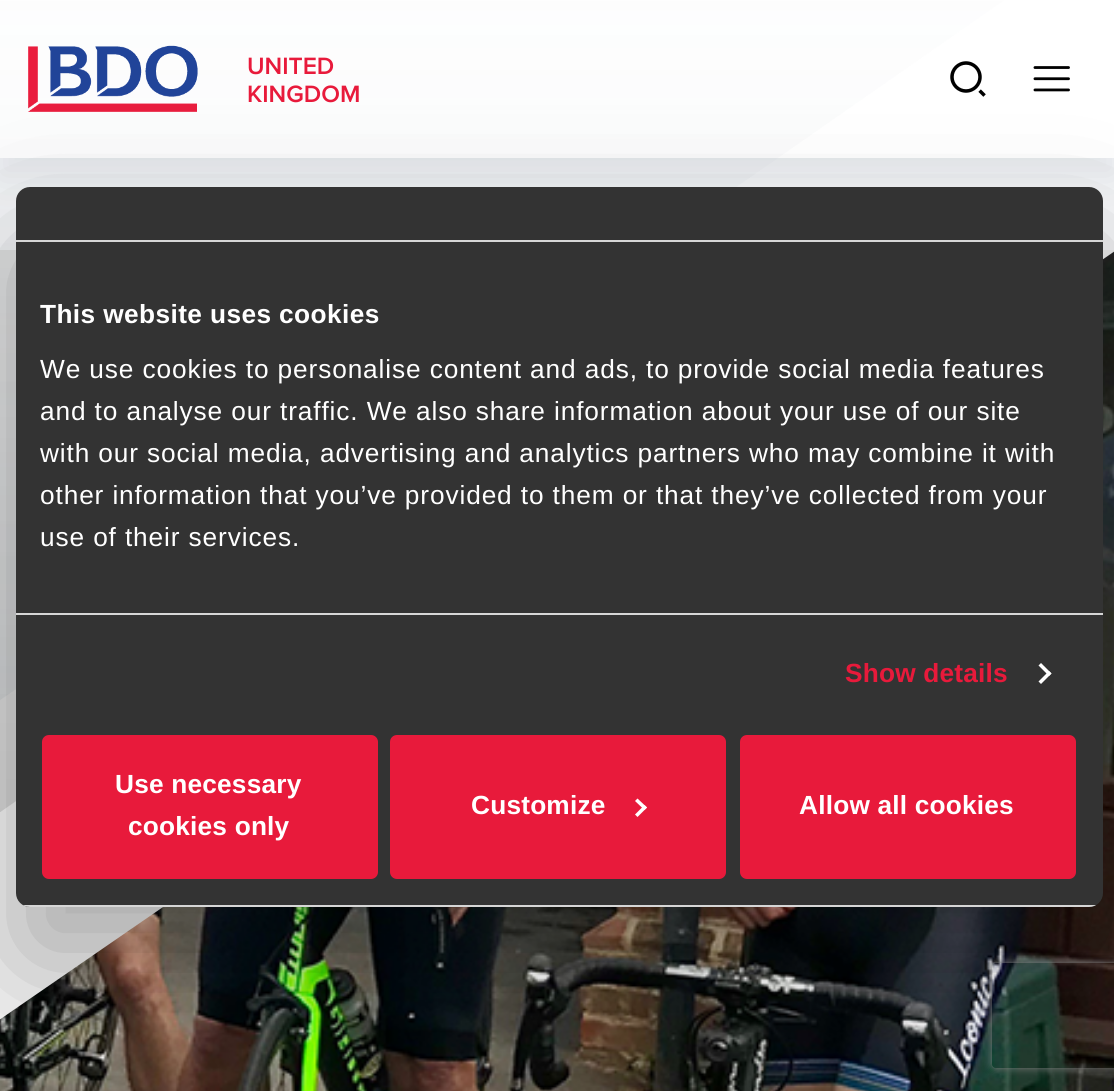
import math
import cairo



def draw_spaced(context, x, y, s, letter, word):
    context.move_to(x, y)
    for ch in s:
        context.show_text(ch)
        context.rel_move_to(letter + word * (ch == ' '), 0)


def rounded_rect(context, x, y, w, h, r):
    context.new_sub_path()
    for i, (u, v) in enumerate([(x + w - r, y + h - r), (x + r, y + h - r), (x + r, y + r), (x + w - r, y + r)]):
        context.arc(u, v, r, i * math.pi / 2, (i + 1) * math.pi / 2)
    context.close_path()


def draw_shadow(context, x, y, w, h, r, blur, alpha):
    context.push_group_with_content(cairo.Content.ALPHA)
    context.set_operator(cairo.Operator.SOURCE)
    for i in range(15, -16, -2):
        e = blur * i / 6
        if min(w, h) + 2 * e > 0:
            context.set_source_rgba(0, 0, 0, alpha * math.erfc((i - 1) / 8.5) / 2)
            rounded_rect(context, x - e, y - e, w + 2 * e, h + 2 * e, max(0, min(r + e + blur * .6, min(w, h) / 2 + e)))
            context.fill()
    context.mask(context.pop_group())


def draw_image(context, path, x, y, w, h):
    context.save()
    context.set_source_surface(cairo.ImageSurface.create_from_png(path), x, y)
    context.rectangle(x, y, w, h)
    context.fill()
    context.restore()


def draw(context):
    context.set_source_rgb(1, 1, 1)
    context.paint()
    context.set_source_rgb(250 / 255, 251 / 255, 253 / 255)
    context.rectangle(0, 158, 1114, 92)
    context.fill()
    context.save()
    context.set_fill_rule(cairo.FillRule.EVEN_ODD)
    context.new_path()
    context.move_to(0, 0)
    context.line_to(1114, 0)
    context.line_to(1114, 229)
    context.line_to(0, 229)
    context.close_path()
    context.move_to(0, 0)
    context.line_to(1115, 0)
    context.line_to(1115, 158)
    context.line_to(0, 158)
    context.close_path()
    context.clip()
    context.set_source_rgb(91 / 255, 110 / 255, 127 / 255)
    draw_shadow(context, 0, 18, 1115, 157, 0, 17.5, 0.15)
    context.restore()
    draw_image(context, "images/1.png", 28, 45, 170, 67)
    draw_image(context, "images/2.png", 950, 61, 36, 36)
    draw_image(context, "images/3.png", 1033, 66, 37, 26)
    draw_image(context, "images/4.png", 0, 251, 1114, 840)
    context.save()
    context.rectangle(0, 250, 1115, 779)
    context.clip()
    context.set_source_rgb(242 / 255, 242 / 255, 242 / 255)
    context.new_path()
    context.move_to(-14, -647)
    context.line_to(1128, -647)
    context.line_to(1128, 242)
    context.line_to(-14, 1029)
    context.close_path()
    context.fill()
    gradient = cairo.LinearGradient(557, 822, 557, 26)
    gradient.add_color_stop_rgba(0, 220 / 255, 223 / 255, 226 / 255, 1)
    gradient.add_color_stop_rgba(0, 213 / 255, 213 / 255, 213 / 255, 1)
    gradient.add_color_stop_rgba(1, 241 / 255, 241 / 255, 241 / 255, 1)
    context.set_source(gradient)
    context.new_path()
    context.move_to(-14, 26)
    context.line_to(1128, 26)
    context.line_to(-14, 822)
    context.close_path()
    context.fill()
    context.restore()
    gradient = cairo.LinearGradient(557, 710, 557, -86)
    gradient.add_color_stop_rgba(0, 51 / 255, 51 / 255, 51 / 255, 0.09)
    gradient.add_color_stop_rgba(0, 99 / 255, 120 / 255, 137 / 255, 0.09)
    gradient.add_color_stop_rgba(1, 99 / 255, 120 / 255, 137 / 255, 0)
    context.set_source(gradient)
    context.new_path()
    context.move_to(-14, -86)
    context.line_to(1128, -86)
    context.line_to(-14, 710)
    context.close_path()
    context.fill()
    context.set_source_rgb(0, 0, 0)
    draw_shadow(context, 16, 243, 1087, 720, 14, 59.5, 0.3)
    context.set_source_rgb(51 / 255, 51 / 255, 51 / 255)
    rounded_rect(context, 16, 187, 1087, 720, 14)
    context.fill()
    context.set_source_rgb(214 / 255, 214 / 255, 214 / 255)
    context.rectangle(16, 240, 1087, 2)
    context.fill()
    context.rectangle(16, 613, 1087, 2)
    context.fill()
    context.set_source_rgb(1, 1, 1)
    context.new_path()
    context.move_to(1041, 663)
    context.line_to(1051.5, 673.5)
    context.line_to(1049, 676)
    context.line_to(1038.5, 665.5)
    context.close_path()
    context.fill()
    context.new_path()
    context.move_to(1049, 671)
    context.line_to(1051.5, 673.5)
    context.line_to(1041, 684)
    context.line_to(1038.5, 681.5)
    context.close_path()
    context.fill()
    context.save()
    rounded_rect(context, 16, 187, 1087, 720, 14)
    context.clip()
    context.set_source_rgb(214 / 255, 214 / 255, 214 / 255)
    context.rectangle(16, 905, 1087, 2)
    context.fill()
    context.restore()
    context.set_source_rgb(232 / 255, 26 / 255, 59 / 255)
    rounded_rect(context, 44, 737, 332, 140, 5)
    context.fill_preserve()
    context.set_line_width(4)
    context.stroke()
    rounded_rect(context, 392, 737, 332, 140, 5)
    context.fill_preserve()
    context.stroke()
    context.set_source_rgb(1, 1, 1)
    context.new_path()
    context.move_to(637.5, 798.5)
    context.line_to(647, 807.5)
    context.line_to(644.5, 810)
    context.line_to(635, 801)
    context.close_path()
    context.fill()
    context.new_path()
    context.move_to(644.5, 805)
    context.line_to(647, 807.5)
    context.line_to(637.5, 817)
    context.line_to(635, 814.5)
    context.close_path()
    context.fill()
    context.set_source_rgb(232 / 255, 26 / 255, 59 / 255)
    rounded_rect(context, 742, 737, 332, 140, 5)
    context.fill_preserve()
    context.stroke()
    context.save()
    context.set_fill_rule(cairo.FillRule.EVEN_ODD)
    context.new_path()
    context.move_to(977, 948)
    context.line_to(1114, 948)
    context.line_to(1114, 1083)
    context.line_to(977, 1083)
    context.close_path()
    context.move_to(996, 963)
    context.line_to(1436, 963)
    context.curve_to(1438, 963, 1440, 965, 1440, 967)
    context.line_to(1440, 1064)
    context.curve_to(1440, 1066, 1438, 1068, 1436, 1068)
    context.line_to(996, 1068)
    context.curve_to(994, 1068, 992, 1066, 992, 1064)
    context.line_to(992, 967)
    context.curve_to(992, 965, 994, 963, 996, 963)
    context.close_path()
    context.clip()
    context.set_source_rgb(128 / 255, 128 / 255, 128 / 255)
    draw_shadow(context, 992, 963, 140, 105, 4, 4.5, 1)
    context.restore()
    context.select_font_face("Proxima Nova SemiBold")
    context.set_font_size(24.5)
    context.move_to(247, 74)
    context.show_text("UNITED")
    context.move_to(247, 102)
    context.show_text("KINGDOM")
    context.select_font_face("Liberation Sans", cairo.FontSlant.NORMAL, cairo.FontWeight.BOLD)
    context.set_font_size(26.25)
    context.set_source_rgb(1, 1, 1)
    draw_spaced(context, 40, 323, "This website uses cookies", 0.4, 0)
    context.select_font_face("Liberation Sans")
    draw_spaced(context, 40, 378, "We use cookies to personalise content and ads, to provide social media features", 0.88, 0)
    draw_spaced(context, 40, 420, "and to analyse our traffic. We also share information about your use of our site", 0.88, 0)
    draw_spaced(context, 40, 462, "with our social media, advertising and analytics partners who may combine it with", 0.88, 0)
    draw_spaced(context, 40, 504, "other information that you’ve provided to them or that they’ve collected from your", 0.88, 0)
    draw_spaced(context, 40, 546, "use of their services.", 0.88, 0)
    context.select_font_face("Liberation Sans", cairo.FontSlant.NORMAL, cairo.FontWeight.BOLD)
    context.set_source_rgb(232 / 255, 26 / 255, 59 / 255)
    draw_spaced(context, 845, 682, "Show details", 0.2, 0)
    context.set_source_rgb(1, 1, 1)
    draw_spaced(context, 115, 793, "Use necessary", 0.2, 0)
    draw_spaced(context, 128, 835, "cookies only", 0.2, 0)
    draw_spaced(context, 471, 814, "Customize", 0.2, 0)
    draw_spaced(context, 799, 814, "Allow all cookies", 0.2, 0)


surface = cairo.ImageSurface(cairo.Format.RGB24, 1114, 1091)
context = cairo.Context(surface)
options = cairo.FontOptions()
options.set_hint_metrics(cairo.HintMetrics.OFF)
options.set_hint_style(cairo.HintStyle.NONE)
context.set_font_options(options)
context.set_miter_limit(4)
draw(context)
surface.write_to_png("out.png")
